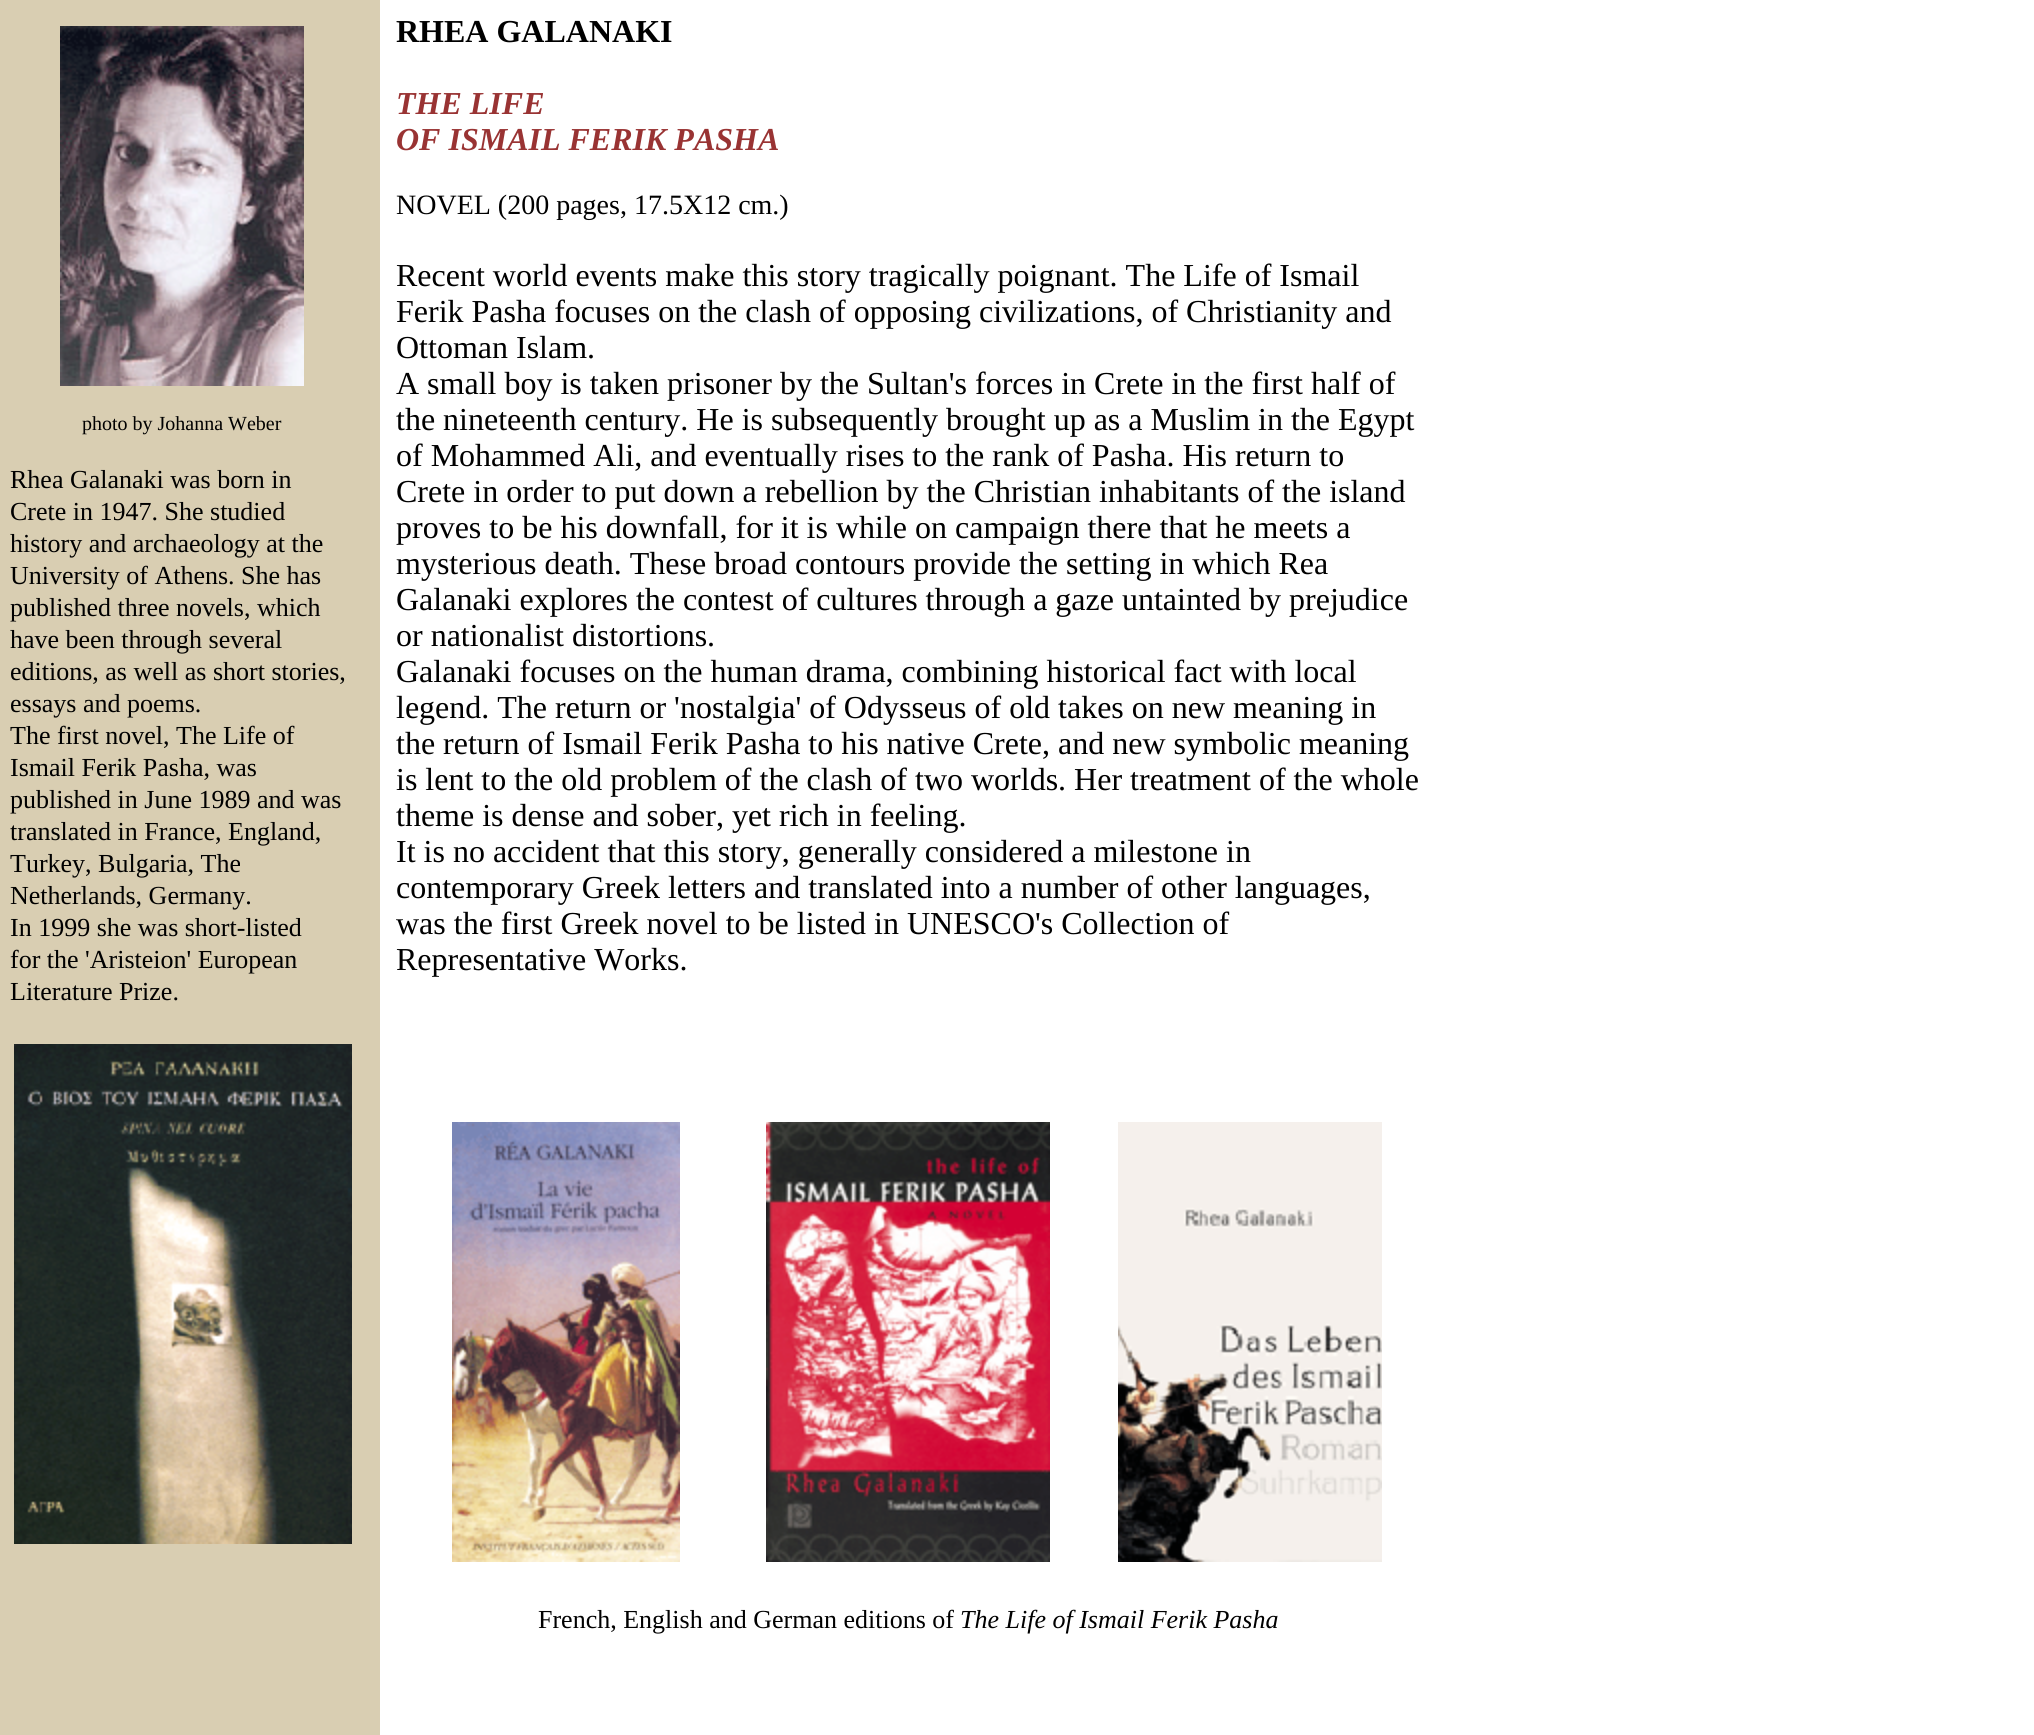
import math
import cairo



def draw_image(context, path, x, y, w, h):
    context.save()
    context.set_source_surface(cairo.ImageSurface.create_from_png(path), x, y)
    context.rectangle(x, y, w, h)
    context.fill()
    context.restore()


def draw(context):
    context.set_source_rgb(1, 1, 1)
    context.paint()
    context.set_source_rgb(217 / 255, 206 / 255, 178 / 255)
    context.rectangle(0, 0, 380, 1735)
    context.fill()
    draw_image(context, "images/1.png", 60, 26, 244, 360)
    draw_image(context, "images/2.png", 14, 1044, 338, 500)
    draw_image(context, "images/3.png", 452, 1122, 228, 440)
    draw_image(context, "images/4.png", 766, 1122, 284, 440)
    draw_image(context, "images/5.png", 1118, 1122, 264, 440)
    context.select_font_face("Liberation Serif")
    context.set_font_size(20)
    context.set_source_rgb(0, 0, 0)
    context.move_to(82, 430)
    context.show_text("photo by Johanna Weber")
    context.set_font_size(26)
    context.move_to(10, 488)
    context.show_text("Rhea Galanaki was born in")
    context.move_to(10, 520)
    context.show_text("Crete in 1947. She studied")
    context.move_to(10, 552)
    context.show_text("history and archaeology at the")
    context.move_to(10, 584)
    context.show_text("University of Athens. She has")
    context.move_to(10, 616)
    context.show_text("published three novels, which")
    context.move_to(10, 648)
    context.show_text("have been through several")
    context.move_to(10, 680)
    context.show_text("editions, as well as short stories,")
    context.move_to(10, 712)
    context.show_text("essays and poems.")
    context.move_to(10, 744)
    context.show_text("The first novel, The Life of")
    context.move_to(10, 776)
    context.show_text("Ismail Ferik Pasha, was")
    context.move_to(10, 808)
    context.show_text("published in June 1989 and was")
    context.move_to(10, 840)
    context.show_text("translated in France, England,")
    context.move_to(10, 872)
    context.show_text("Turkey, Bulgaria, The")
    context.move_to(10, 904)
    context.show_text("Netherlands, Germany.")
    context.move_to(10, 936)
    context.show_text("In 1999 she was short-listed")
    context.move_to(10, 968)
    context.show_text("for the 'Aristeion' European")
    context.move_to(10, 1000)
    context.show_text("Literature Prize.")
    context.select_font_face("Liberation Serif", cairo.FontSlant.NORMAL, cairo.FontWeight.BOLD)
    context.set_font_size(32)
    context.move_to(396, 42)
    context.show_text("RHEA GALANAKI")
    context.select_font_face("Liberation Serif", cairo.FontSlant.ITALIC, cairo.FontWeight.BOLD)
    context.set_source_rgb(153 / 255, 51 / 255, 51 / 255)
    context.move_to(396, 114)
    context.show_text("THE LIFE")
    context.move_to(396, 150)
    context.show_text("OF ISMAIL FERIK PASHA")
    context.select_font_face("Liberation Serif")
    context.set_font_size(28)
    context.set_source_rgb(0, 0, 0)
    context.move_to(396, 214)
    context.show_text("NOVEL (200 pages, 17.5X12 cm.)")
    context.set_font_size(32)
    context.move_to(396, 286)
    context.show_text("Recent world events make this story tragically poignant. The Life of Ismail")
    context.move_to(396, 322)
    context.show_text("Ferik Pasha focuses on the clash of opposing civilizations, of Christianity and")
    context.move_to(396, 358)
    context.show_text("Ottoman Islam.")
    context.move_to(396, 394)
    context.show_text("A small boy is taken prisoner by the Sultan's forces in Crete in the first half of")
    context.move_to(396, 430)
    context.show_text("the nineteenth century. He is subsequently brought up as a Muslim in the Egypt")
    context.move_to(396, 466)
    context.show_text("of Mohammed Ali, and eventually rises to the rank of Pasha. His return to")
    context.move_to(396, 502)
    context.show_text("Crete in order to put down a rebellion by the Christian inhabitants of the island")
    context.move_to(396, 538)
    context.show_text("proves to be his downfall, for it is while on campaign there that he meets a")
    context.move_to(396, 574)
    context.show_text("mysterious death. These broad contours provide the setting in which Rea")
    context.move_to(396, 610)
    context.show_text("Galanaki explores the contest of cultures through a gaze untainted by prejudice")
    context.move_to(396, 646)
    context.show_text("or nationalist distortions.")
    context.move_to(396, 682)
    context.show_text("Galanaki focuses on the human drama, combining historical fact with local")
    context.move_to(396, 718)
    context.show_text("legend. The return or 'nostalgia' of Odysseus of old takes on new meaning in")
    context.move_to(396, 754)
    context.show_text("the return of Ismail Ferik Pasha to his native Crete, and new symbolic meaning")
    context.move_to(396, 790)
    context.show_text("is lent to the old problem of the clash of two worlds. Her treatment of the whole")
    context.move_to(396, 826)
    context.show_text("theme is dense and sober, yet rich in feeling.")
    context.move_to(396, 862)
    context.show_text("It is no accident that this story, generally considered a milestone in")
    context.move_to(396, 898)
    context.show_text("contemporary Greek letters and translated into a number of other languages,")
    context.move_to(396, 934)
    context.show_text("was the first Greek novel to be listed in UNESCO's Collection of")
    context.move_to(396, 970)
    context.show_text("Representative Works.")
    context.set_font_size(26)
    context.move_to(538, 1628)
    context.show_text("French, English and German editions of")
    context.select_font_face("Liberation Serif", cairo.FontSlant.ITALIC)
    context.move_to(960, 1628)
    context.show_text("The Life of Ismail Ferik Pasha")


surface = cairo.ImageSurface(cairo.Format.RGB24, 2034, 1735)
context = cairo.Context(surface)
options = cairo.FontOptions()
options.set_hint_metrics(cairo.HintMetrics.OFF)
options.set_hint_style(cairo.HintStyle.NONE)
context.set_font_options(options)
context.set_miter_limit(4)
draw(context)
surface.write_to_png("out.png")
